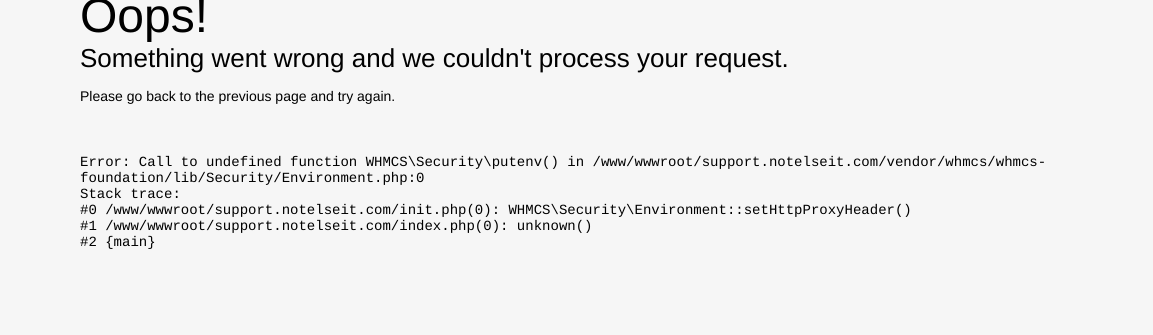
import math
import cairo



def draw(context):
    context.set_source_rgb(246 / 255, 246 / 255, 246 / 255)
    context.paint()
    context.select_font_face("Liberation Sans")
    context.set_font_size(48)
    context.set_source_rgb(0, 0, 0)
    context.move_to(80, 32)
    context.show_text("Oops!")
    context.set_font_size(26)
    context.move_to(80, 67)
    context.show_text("Something went wrong and we couldn't process your request.")
    context.set_font_size(14)
    context.move_to(80, 101)
    context.show_text("Please go back to the previous page and try again.")
    context.select_font_face("Liberation Mono")
    context.move_to(80, 166)
    context.show_text("Error: Call to undefined function WHMCS\\Security\\putenv() in /www/wwwroot/support.notelseit.com/vendor/whmcs/whmcs-")
    context.move_to(80, 182)
    context.show_text("foundation/lib/Security/Environment.php:0")
    context.move_to(80, 198)
    context.show_text("Stack trace:")
    context.move_to(80, 214)
    context.show_text("#0 /www/wwwroot/support.notelseit.com/init.php(0): WHMCS\\Security\\Environment::setHttpProxyHeader()")
    context.move_to(80, 230)
    context.show_text("#1 /www/wwwroot/support.notelseit.com/index.php(0): unknown()")
    context.move_to(80, 246)
    context.show_text("#2 {main}")


surface = cairo.ImageSurface(cairo.Format.RGB24, 1153, 335)
context = cairo.Context(surface)
options = cairo.FontOptions()
options.set_hint_metrics(cairo.HintMetrics.OFF)
options.set_hint_style(cairo.HintStyle.NONE)
context.set_font_options(options)
context.set_miter_limit(4)
draw(context)
surface.write_to_png("out.png")
